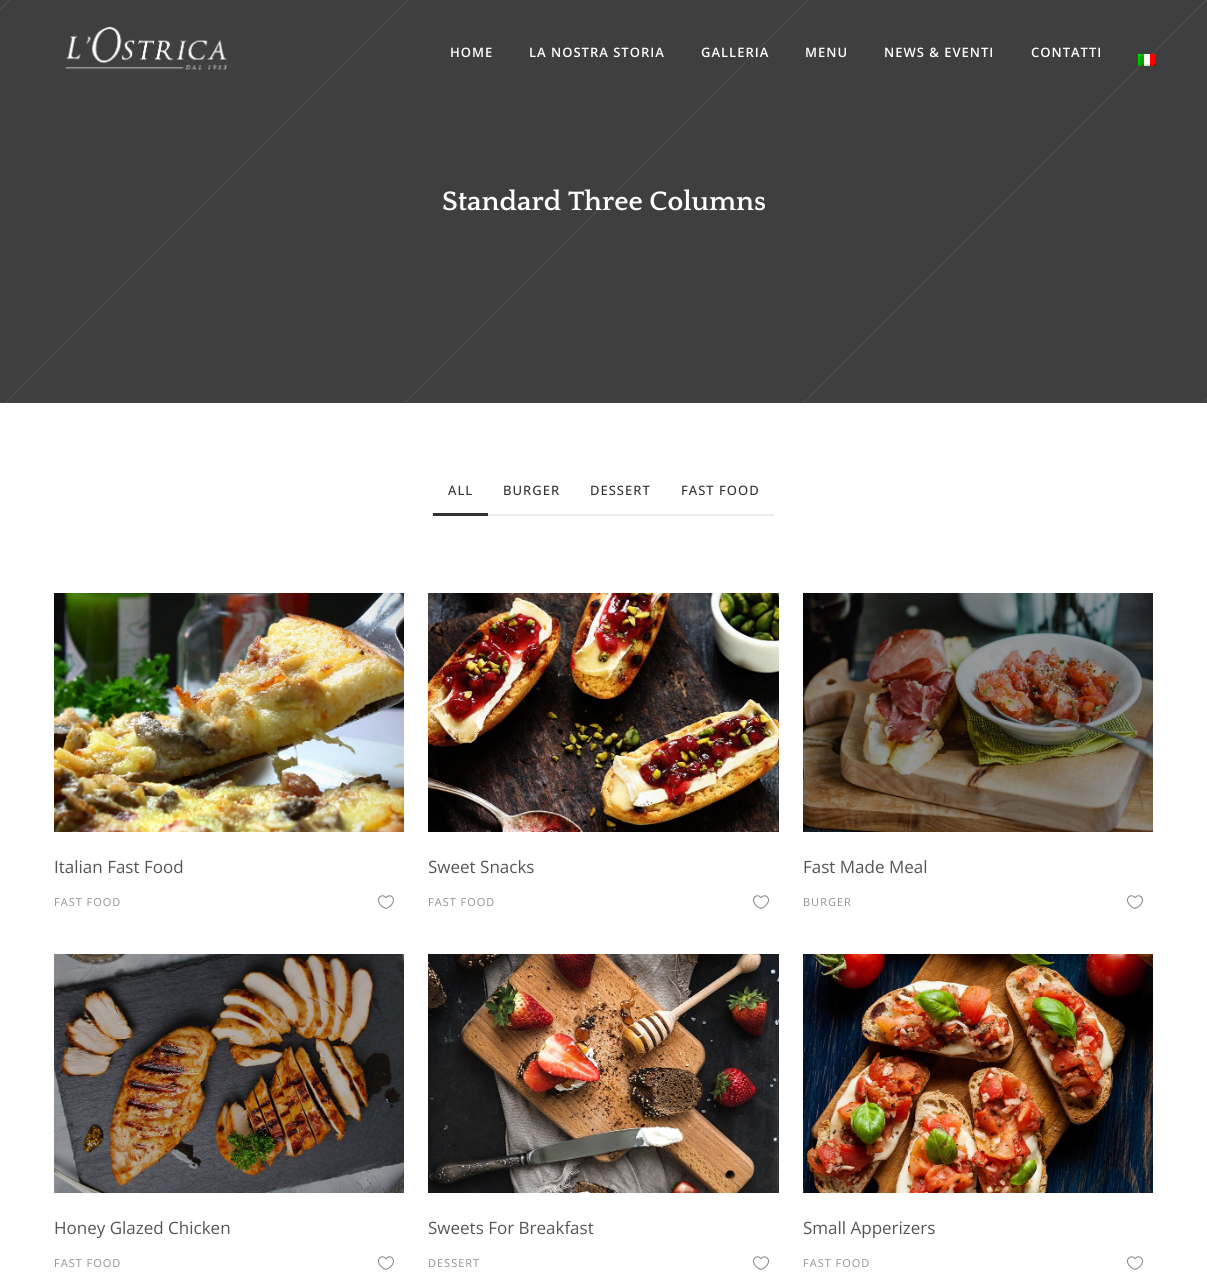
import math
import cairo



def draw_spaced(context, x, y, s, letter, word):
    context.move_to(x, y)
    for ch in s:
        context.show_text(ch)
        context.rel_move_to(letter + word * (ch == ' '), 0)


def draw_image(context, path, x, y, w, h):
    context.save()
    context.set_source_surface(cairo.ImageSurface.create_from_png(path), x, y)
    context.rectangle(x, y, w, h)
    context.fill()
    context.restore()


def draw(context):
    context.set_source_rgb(1, 1, 1)
    context.paint()
    draw_image(context, "images/3.png", 0, 0, 1207, 403)
    draw_image(context, "images/1.png", 65, 26, 162, 45)
    draw_image(context, "images/2.png", 1138, 54, 18, 12)
    context.set_source_rgb(51 / 255, 51 / 255, 51 / 255)
    context.rectangle(433, 513, 55, 3)
    context.fill()
    context.set_source_rgb(235 / 255, 235 / 255, 235 / 255)
    context.rectangle(488, 514, 286, 2)
    context.fill()
    draw_image(context, "images/4.png", 54, 593, 350, 239)
    draw_image(context, "images/5.png", 378, 895, 16, 14)
    draw_image(context, "images/6.png", 428, 593, 351, 239)
    draw_image(context, "images/5.png", 753, 895, 16, 14)
    draw_image(context, "images/7.png", 803, 593, 350, 239)
    draw_image(context, "images/5.png", 1127, 895, 16, 14)
    draw_image(context, "images/8.png", 54, 954, 350, 239)
    draw_image(context, "images/5.png", 378, 1256, 16, 14)
    draw_image(context, "images/9.png", 428, 954, 351, 239)
    draw_image(context, "images/5.png", 753, 1256, 16, 14)
    draw_image(context, "images/10.png", 803, 954, 350, 239)
    draw_image(context, "images/5.png", 1127, 1256, 16, 14)
    context.select_font_face("Open Sans SemiBold")
    context.set_font_size(13)
    context.set_source_rgb(1, 1, 1)
    draw_spaced(context, 450, 57, "HOME", 1, 0)
    draw_spaced(context, 529, 57, "LA NOSTRA STORIA", 1, 0)
    draw_spaced(context, 701, 57, "GALLERIA", 1, 0)
    draw_spaced(context, 805, 57, "MENU", 1, 0)
    draw_spaced(context, 884, 57, "NEWS & EVENTI", 1, 0)
    draw_spaced(context, 1031, 57, "CONTATTI", 1, 0)
    context.select_font_face("Quattrocento", cairo.FontSlant.NORMAL, cairo.FontWeight.BOLD)
    context.set_font_size(28)
    context.move_to(442, 210)
    context.show_text("Standard Three Columns")
    context.select_font_face("Open Sans Medium")
    context.set_font_size(13)
    context.set_source_rgb(51 / 255, 51 / 255, 51 / 255)
    draw_spaced(context, 448, 495, "ALL", 1, 0)
    draw_spaced(context, 503, 495, "BURGER", 1, 0)
    draw_spaced(context, 590, 495, "DESSERT", 1, 0)
    draw_spaced(context, 681, 495, "FAST FOOD", 1, 0)
    context.select_font_face("Open Sans")
    context.set_font_size(17)
    context.set_source_rgb(85 / 255, 85 / 255, 85 / 255)
    context.move_to(54, 873)
    context.show_text("Italian Fast Food")
    context.set_font_size(11)
    context.set_source_rgb(144 / 255, 144 / 255, 144 / 255)
    draw_spaced(context, 54, 906, "FAST FOOD", 1, 0)
    context.set_font_size(17)
    context.set_source_rgb(85 / 255, 85 / 255, 85 / 255)
    context.move_to(428, 873)
    context.show_text("Sweet Snacks")
    context.set_font_size(11)
    context.set_source_rgb(144 / 255, 144 / 255, 144 / 255)
    draw_spaced(context, 428, 906, "FAST FOOD", 1, 0)
    context.set_font_size(17)
    context.set_source_rgb(85 / 255, 85 / 255, 85 / 255)
    context.move_to(803, 873)
    context.show_text("Fast Made Meal")
    context.set_font_size(11)
    context.set_source_rgb(144 / 255, 144 / 255, 144 / 255)
    draw_spaced(context, 803, 906, "BURGER", 1, 0)
    context.set_font_size(17)
    context.set_source_rgb(85 / 255, 85 / 255, 85 / 255)
    context.move_to(54, 1234)
    context.show_text("Honey Glazed Chicken")
    context.set_font_size(11)
    context.set_source_rgb(144 / 255, 144 / 255, 144 / 255)
    draw_spaced(context, 54, 1267, "FAST FOOD", 1, 0)
    context.set_font_size(17)
    context.set_source_rgb(85 / 255, 85 / 255, 85 / 255)
    context.move_to(428, 1234)
    context.show_text("Sweets For Breakfast")
    context.set_font_size(11)
    context.set_source_rgb(144 / 255, 144 / 255, 144 / 255)
    draw_spaced(context, 428, 1267, "DESSERT", 1, 0)
    context.set_font_size(17)
    context.set_source_rgb(85 / 255, 85 / 255, 85 / 255)
    context.move_to(803, 1234)
    context.show_text("Small Apperizers")
    context.set_font_size(11)
    context.set_source_rgb(144 / 255, 144 / 255, 144 / 255)
    draw_spaced(context, 803, 1267, "FAST FOOD", 1, 0)


surface = cairo.ImageSurface(cairo.Format.RGB24, 1207, 1278)
context = cairo.Context(surface)
options = cairo.FontOptions()
options.set_hint_metrics(cairo.HintMetrics.OFF)
options.set_hint_style(cairo.HintStyle.NONE)
context.set_font_options(options)
context.set_miter_limit(4)
draw(context)
surface.write_to_png("out.png")
